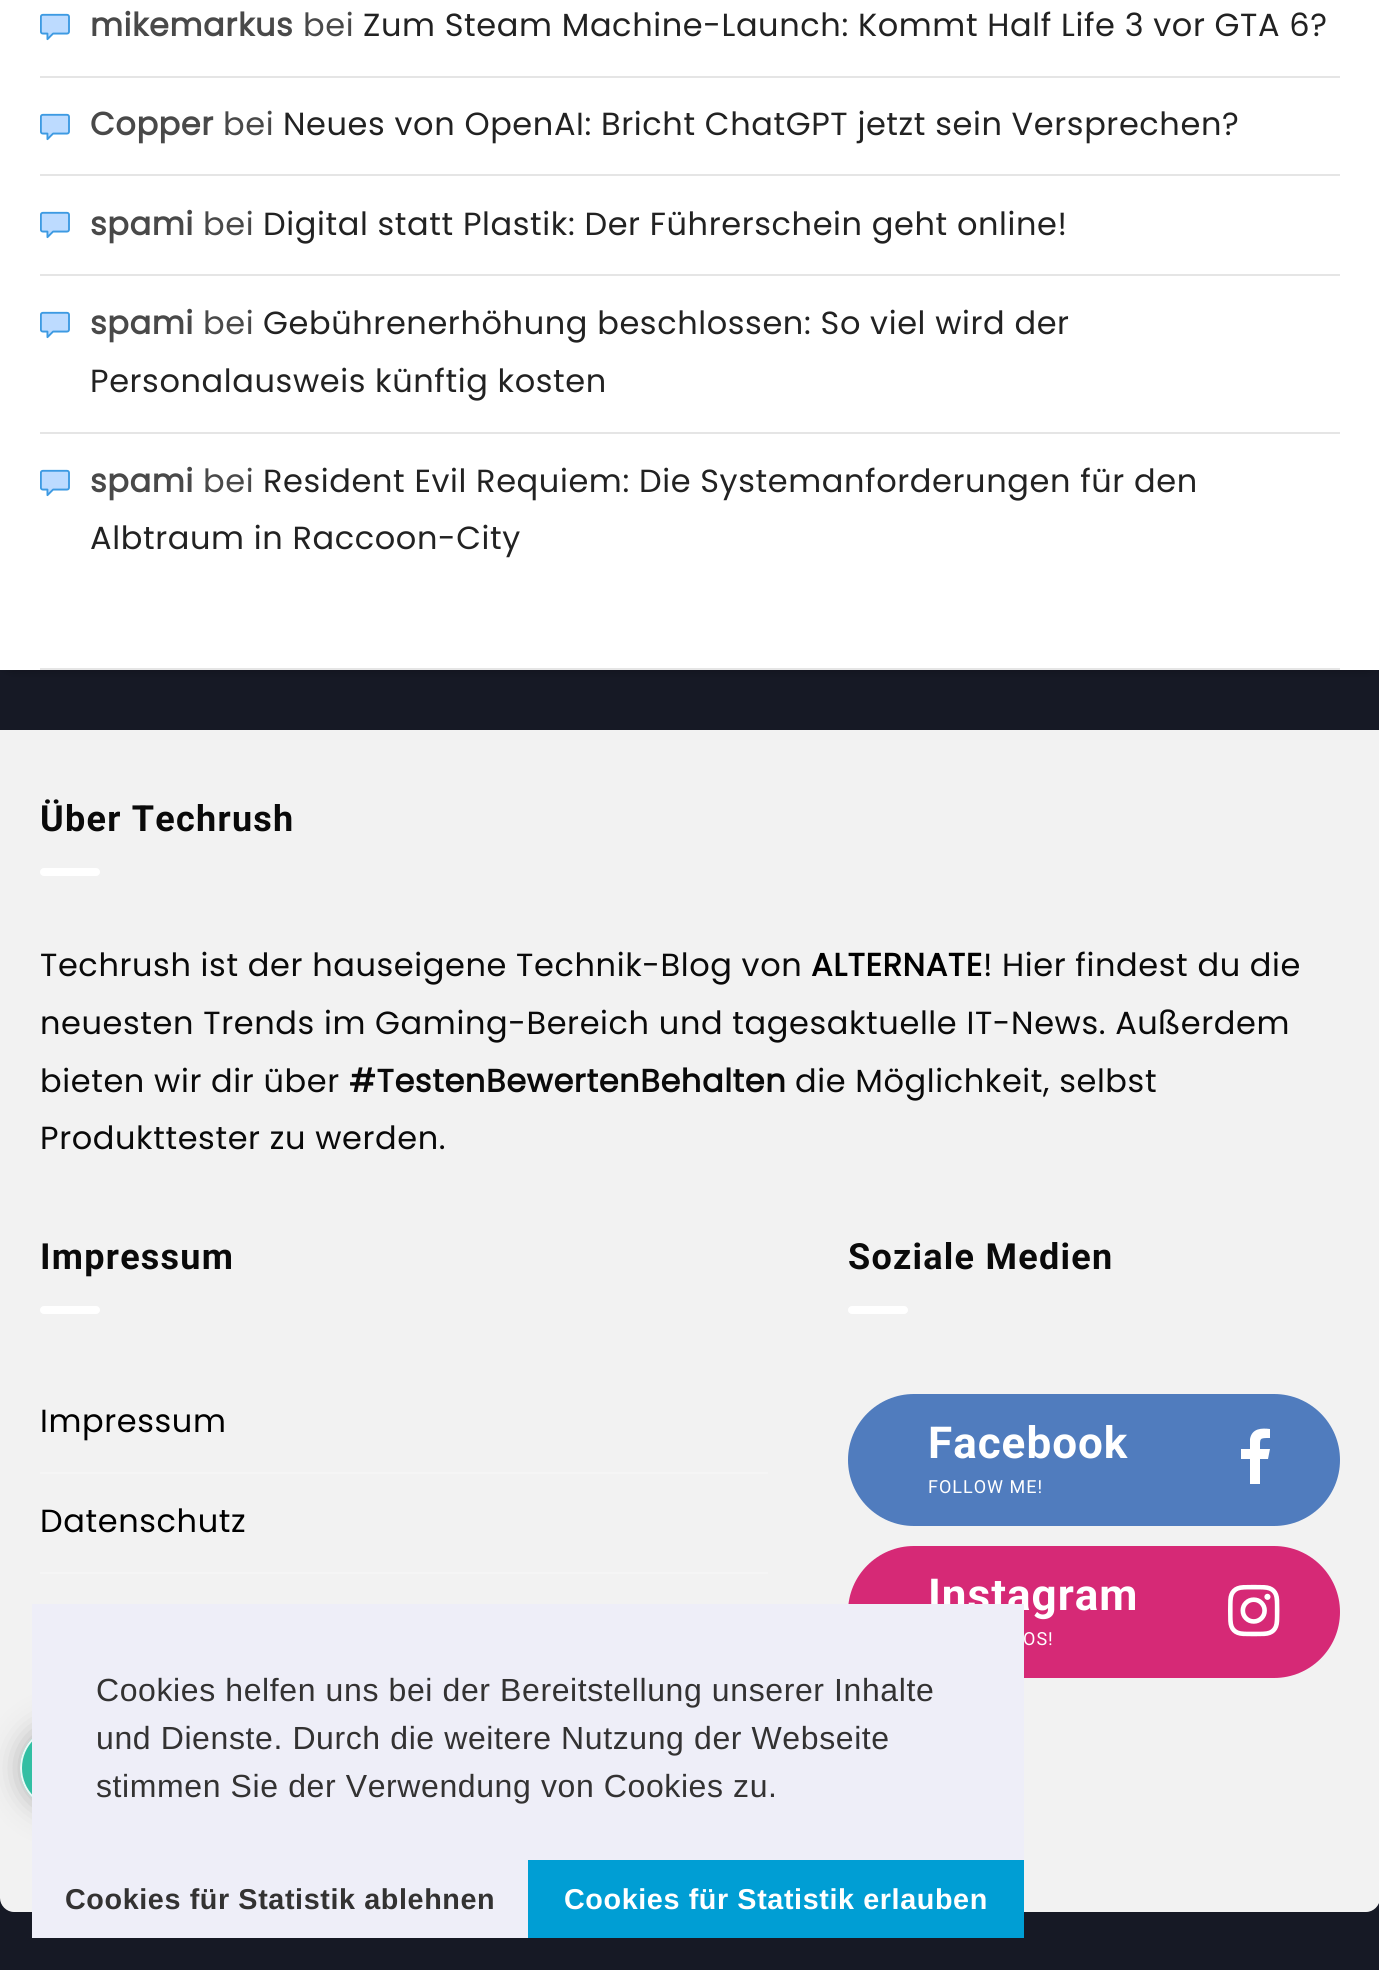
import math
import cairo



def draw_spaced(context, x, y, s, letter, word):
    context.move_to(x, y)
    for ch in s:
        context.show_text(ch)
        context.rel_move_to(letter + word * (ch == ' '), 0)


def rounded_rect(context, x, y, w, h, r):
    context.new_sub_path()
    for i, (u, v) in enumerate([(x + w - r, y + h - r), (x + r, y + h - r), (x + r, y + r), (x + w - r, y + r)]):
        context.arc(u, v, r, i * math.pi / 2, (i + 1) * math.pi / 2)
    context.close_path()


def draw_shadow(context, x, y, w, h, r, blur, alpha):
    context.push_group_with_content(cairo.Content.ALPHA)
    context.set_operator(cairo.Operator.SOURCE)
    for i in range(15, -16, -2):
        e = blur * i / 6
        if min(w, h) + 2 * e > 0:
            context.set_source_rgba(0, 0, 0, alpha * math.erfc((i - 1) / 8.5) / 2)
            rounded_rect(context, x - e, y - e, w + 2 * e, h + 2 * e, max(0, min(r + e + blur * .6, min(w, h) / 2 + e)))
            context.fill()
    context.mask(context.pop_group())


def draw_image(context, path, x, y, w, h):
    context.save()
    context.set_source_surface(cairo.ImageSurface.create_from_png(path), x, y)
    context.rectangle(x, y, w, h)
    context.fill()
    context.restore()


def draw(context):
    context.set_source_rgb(22 / 255, 25 / 255, 37 / 255)
    context.paint()
    context.set_source_rgb(0, 0, 0)
    draw_shadow(context, 0, -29, 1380, 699, 14, 5, 0.3)
    context.set_source_rgb(1, 1, 1)
    context.rectangle(0, 0, 1379, 670)
    context.fill()
    context.set_source_rgb(229 / 255, 229 / 255, 229 / 255)
    context.rectangle(40, 668, 1300, 2)
    context.fill()
    draw_image(context, "images/1.png", 40, 13, 30, 28)
    context.rectangle(40, 76, 1300, 2)
    context.fill()
    draw_image(context, "images/1.png", 40, 113, 30, 28)
    context.rectangle(40, 174, 1300, 2)
    context.fill()
    draw_image(context, "images/1.png", 40, 211, 30, 28)
    context.rectangle(40, 274, 1300, 2)
    context.fill()
    draw_image(context, "images/1.png", 40, 311, 30, 28)
    context.rectangle(40, 432, 1300, 2)
    context.fill()
    draw_image(context, "images/1.png", 40, 469, 30, 28)
    context.set_source_rgb(242 / 255, 242 / 255, 242 / 255)
    context.new_path()
    context.move_to(0, 730)
    context.line_to(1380, 730)
    context.line_to(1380, 1898)
    context.curve_to(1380, 1905.5, 1373.5, 1912, 1366, 1912)
    context.line_to(14, 1912)
    context.curve_to(6.5, 1912, 0, 1905.5, 0, 1898)
    context.close_path()
    context.fill()
    context.set_source_rgb(1, 1, 1)
    rounded_rect(context, 40, 868, 60, 8, 4)
    context.fill()
    rounded_rect(context, 40, 1306, 60, 8, 4)
    context.fill()
    context.set_source_rgb(245 / 255, 245 / 255, 245 / 255)
    context.rectangle(40, 1472, 728, 2)
    context.fill()
    context.rectangle(40, 1572, 728, 2)
    context.fill()
    context.set_source_rgb(1, 1, 1)
    rounded_rect(context, 848, 1306, 60, 8, 4)
    context.fill()
    context.set_source_rgb(80 / 255, 124 / 255, 190 / 255)
    rounded_rect(context, 848, 1394, 492, 132, 66)
    context.fill()
    context.set_source_rgb(1, 1, 1)
    context.new_path()
    context.move_to(1270, 1429)
    context.line_to(1270, 1438)
    context.curve_to(1259, 1438, 1260, 1438, 1260, 1449)
    context.line_to(1270, 1449)
    context.line_to(1268, 1459)
    context.line_to(1260, 1459)
    context.line_to(1260, 1484)
    context.line_to(1250, 1484)
    context.line_to(1250, 1459)
    context.line_to(1241, 1459)
    context.line_to(1241, 1449)
    context.line_to(1250, 1449)
    context.line_to(1250, 1439)
    context.curve_to(1252, 1428, 1262, 1428, 1270, 1429)
    context.close_path()
    context.fill()
    context.set_source_rgb(214 / 255, 41 / 255, 118 / 255)
    rounded_rect(context, 848, 1546, 492, 132, 66)
    context.fill()
    draw_image(context, "images/2.png", 1228, 1584, 52, 53)
    context.save()
    context.set_fill_rule(cairo.FillRule.EVEN_ODD)
    context.new_path()
    context.move_to(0, 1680)
    context.line_to(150, 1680)
    context.line_to(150, 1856)
    context.line_to(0, 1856)
    context.close_path()
    context.move_to(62, 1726)
    context.curve_to(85, 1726, 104, 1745, 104, 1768)
    context.curve_to(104, 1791, 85, 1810, 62, 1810)
    context.curve_to(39, 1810, 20, 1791, 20, 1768)
    context.curve_to(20, 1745, 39, 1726, 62, 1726)
    context.close_path()
    context.clip()
    context.set_source_rgb(170 / 255, 170 / 255, 170 / 255)
    draw_shadow(context, 20, 1726, 84, 84, 42, 15, 0.9)
    context.restore()
    context.set_source_rgba(29 / 255, 185 / 255, 154 / 255, 0.9)
    context.arc(62, 1768, 42, 0, 2 * math.pi)
    context.fill()
    context.arc(62, 1768, 41, 0, 2 * math.pi)
    context.set_source_rgba(1, 1, 1, 0.9)
    context.stroke()
    context.select_font_face("Poppins", cairo.FontSlant.NORMAL, cairo.FontWeight.BOLD)
    context.set_font_size(32)
    context.set_source_rgb(73 / 255, 73 / 255, 73 / 255)
    draw_spaced(context, 90, 36, "mikemarkus", 0.6, 0)
    context.select_font_face("Poppins")
    draw_spaced(context, 303, 36, "bei", 0.6, 0)
    context.set_source_rgb(34 / 255, 34 / 255, 34 / 255)
    draw_spaced(context, 363, 36, "Zum Steam Machine-Launch: Kommt Half Life 3 vor GTA 6?", 0.6, 0)
    context.select_font_face("Poppins", cairo.FontSlant.NORMAL, cairo.FontWeight.BOLD)
    context.set_source_rgb(73 / 255, 73 / 255, 73 / 255)
    draw_spaced(context, 90, 135, "Copper", 0.6, 0)
    context.select_font_face("Poppins")
    draw_spaced(context, 223, 135, "bei", 0.6, 0)
    context.set_source_rgb(34 / 255, 34 / 255, 34 / 255)
    draw_spaced(context, 283, 135, "Neues von OpenAI: Bricht ChatGPT jetzt sein Versprechen?", 0.6, 0)
    context.select_font_face("Poppins", cairo.FontSlant.NORMAL, cairo.FontWeight.BOLD)
    context.set_source_rgb(73 / 255, 73 / 255, 73 / 255)
    draw_spaced(context, 90, 235, "spami", 0.6, 0)
    context.select_font_face("Poppins")
    draw_spaced(context, 203, 235, "bei", 0.6, 0)
    context.set_source_rgb(34 / 255, 34 / 255, 34 / 255)
    draw_spaced(context, 263, 235, "Digital statt Plastik: Der Führerschein geht online!", 0.6, 0)
    context.select_font_face("Poppins", cairo.FontSlant.NORMAL, cairo.FontWeight.BOLD)
    context.set_source_rgb(73 / 255, 73 / 255, 73 / 255)
    draw_spaced(context, 90, 334, "spami", 0.6, 0)
    context.select_font_face("Poppins")
    draw_spaced(context, 203, 334, "bei", 0.6, 0)
    context.set_source_rgb(34 / 255, 34 / 255, 34 / 255)
    draw_spaced(context, 263, 334, "Gebührenerhöhung beschlossen: So viel wird der", 0.6, 0)
    draw_spaced(context, 90, 392, "Personalausweis künftig kosten", 0.6, 0)
    context.select_font_face("Poppins", cairo.FontSlant.NORMAL, cairo.FontWeight.BOLD)
    context.set_source_rgb(73 / 255, 73 / 255, 73 / 255)
    draw_spaced(context, 90, 492, "spami", 0.6, 0)
    context.select_font_face("Poppins")
    draw_spaced(context, 203, 492, "bei", 0.6, 0)
    context.set_source_rgb(34 / 255, 34 / 255, 34 / 255)
    draw_spaced(context, 263, 492, "Resident Evil Requiem: Die Systemanforderungen für den", 0.6, 0)
    draw_spaced(context, 90, 549, "Albtraum in Raccoon-City", 0.6, 0)
    context.select_font_face("Roboto", cairo.FontSlant.NORMAL, cairo.FontWeight.BOLD)
    context.set_font_size(36)
    context.set_source_rgb(10 / 255, 10 / 255, 10 / 255)
    draw_spaced(context, 40, 831, "Über Techrush", 1.25, 0)
    context.select_font_face("Poppins")
    context.set_font_size(32)
    draw_spaced(context, 40, 976, "Techrush ist der hauseigene Technik-Blog von", 0.6, 0)
    context.select_font_face("Poppins", cairo.FontSlant.NORMAL, cairo.FontWeight.BOLD)
    context.set_source_rgb(0, 0, 0)
    draw_spaced(context, 811, 976, "ALTERNATE", 0.6, 0)
    context.select_font_face("Poppins")
    draw_spaced(context, 983, 976, "!", 0.6, 0)
    context.set_source_rgb(10 / 255, 10 / 255, 10 / 255)
    draw_spaced(context, 1002, 976, "Hier findest du die", 0.6, 0)
    draw_spaced(context, 40, 1034, "neuesten Trends im Gaming-Bereich und tagesaktuelle IT-News. Außerdem", 0.6, 0)
    draw_spaced(context, 40, 1092, "bieten wir dir über", 0.6, 0)
    context.select_font_face("Poppins", cairo.FontSlant.NORMAL, cairo.FontWeight.BOLD)
    draw_spaced(context, 349, 1092, "#TestenBewertenBehalten", 0.6, 0)
    context.select_font_face("Poppins")
    draw_spaced(context, 795, 1092, "die Möglichkeit, selbst", 0.6, 0)
    draw_spaced(context, 40, 1149, "Produkttester zu werden.", 0.6, 0)
    context.select_font_face("Roboto", cairo.FontSlant.NORMAL, cairo.FontWeight.BOLD)
    context.set_font_size(36)
    draw_spaced(context, 40, 1269, "Impressum", 1.25, 0)
    context.select_font_face("Poppins")
    context.set_font_size(32)
    context.set_source_rgb(0, 0, 0)
    draw_spaced(context, 40, 1432, "Impressum", 0.6, 0)
    draw_spaced(context, 40, 1532, "Datenschutz", 0.6, 0)
    context.select_font_face("Roboto", cairo.FontSlant.NORMAL, cairo.FontWeight.BOLD)
    context.set_font_size(36)
    context.set_source_rgb(10 / 255, 10 / 255, 10 / 255)
    draw_spaced(context, 848, 1269, "Soziale Medien", 1.25, 0)
    context.set_font_size(44)
    context.set_source_rgb(1, 1, 1)
    draw_spaced(context, 928, 1458, "Facebook", 1, 0)
    context.select_font_face("Roboto")
    context.set_font_size(18)
    draw_spaced(context, 928, 1493, "FOLLOW ME!", 1, 0)
    context.select_font_face("Roboto", cairo.FontSlant.NORMAL, cairo.FontWeight.BOLD)
    context.set_font_size(44)
    draw_spaced(context, 928, 1610, "Instagram", 1, 0)
    context.select_font_face("Roboto")
    context.set_font_size(18)
    draw_spaced(context, 1023, 1645, "OS!", 1, 0)
    context.set_source_rgb(238 / 255, 238 / 255, 248 / 255)
    context.rectangle(32, 1604, 992, 334)
    context.fill()
    context.select_font_face("Liberation Sans")
    context.set_font_size(32)
    context.set_source_rgb(51 / 255, 50 / 255, 50 / 255)
    draw_spaced(context, 96, 1701, "Cookies helfen uns bei der Bereitstellung unserer Inhalte", 0.6, 0)
    draw_spaced(context, 96, 1749, "und Dienste. Durch die weitere Nutzung der Webseite", 0.6, 0)
    draw_spaced(context, 96, 1797, "stimmen Sie der Verwendung von Cookies zu.", 0.6, 0)
    context.select_font_face("Liberation Sans", cairo.FontSlant.NORMAL, cairo.FontWeight.BOLD)
    context.set_font_size(28.75)
    draw_spaced(context, 65, 1909, "Cookies für Statistik ablehnen", 0.6, 0)
    context.set_source_rgb(0, 158 / 255, 212 / 255)
    context.rectangle(528, 1860, 496, 78)
    context.fill()
    context.set_source_rgb(1, 1, 1)
    draw_spaced(context, 564, 1909, "Cookies für Statistik erlauben", 0.6, 0)


surface = cairo.ImageSurface(cairo.Format.RGB24, 1379, 1970)
context = cairo.Context(surface)
options = cairo.FontOptions()
options.set_hint_metrics(cairo.HintMetrics.OFF)
options.set_hint_style(cairo.HintStyle.NONE)
context.set_font_options(options)
context.set_miter_limit(4)
draw(context)
surface.write_to_png("out.png")
